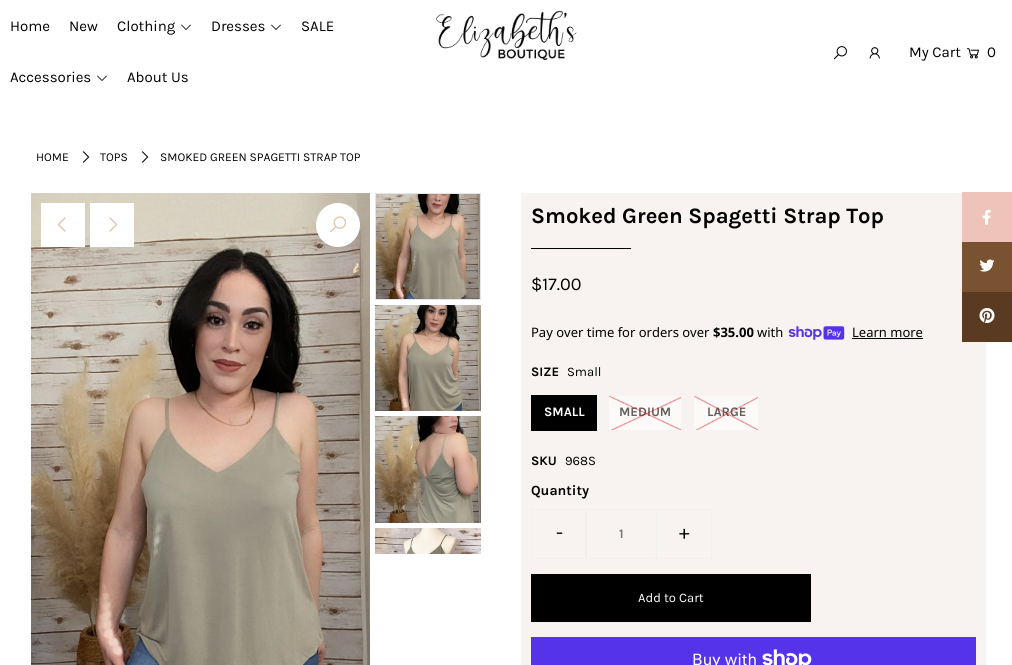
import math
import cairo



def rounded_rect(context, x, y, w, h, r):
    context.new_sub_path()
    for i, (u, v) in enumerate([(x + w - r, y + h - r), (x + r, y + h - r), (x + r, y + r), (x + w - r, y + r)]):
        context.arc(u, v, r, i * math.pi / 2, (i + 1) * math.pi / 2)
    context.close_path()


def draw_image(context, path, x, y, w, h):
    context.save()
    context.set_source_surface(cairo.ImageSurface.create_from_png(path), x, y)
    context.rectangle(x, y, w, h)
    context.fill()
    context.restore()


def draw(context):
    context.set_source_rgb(1, 1, 1)
    context.paint()
    draw_image(context, "images/1.png", 181, 24, 10, 6)
    draw_image(context, "images/1.png", 271, 24, 10, 6)
    draw_image(context, "images/1.png", 97, 75, 10, 6)
    draw_image(context, "images/2.png", 436, 10, 141, 50)
    draw_image(context, "images/3.png", 833, 46, 14, 14)
    draw_image(context, "images/4.png", 869, 47, 11, 12)
    draw_image(context, "images/5.png", 967, 48, 13, 11)
    draw_image(context, "images/6.png", 82, 151, 8, 12)
    draw_image(context, "images/6.png", 141, 151, 8, 12)
    draw_image(context, "images/7.png", 31, 193, 339, 472)
    context.set_source_rgb(1, 1, 1)
    context.arc(338, 225, 22, 0, 2 * math.pi)
    context.fill()
    draw_image(context, "images/8.png", 330, 216, 17, 17)
    context.rectangle(41, 203, 44, 44)
    context.fill()
    draw_image(context, "images/9.png", 57, 217, 9, 15)
    context.rectangle(90, 203, 44, 44)
    context.fill()
    draw_image(context, "images/10.png", 109, 217, 9, 15)
    draw_image(context, "images/11.png", 376, 194, 104, 105)
    context.rectangle(375.5, 193.5, 105, 106)
    context.set_source_rgb(229 / 255, 229 / 255, 229 / 255)
    context.set_line_width(1)
    context.stroke()
    draw_image(context, "images/12.png", 375, 305, 106, 106)
    draw_image(context, "images/13.png", 375, 416, 106, 107)
    draw_image(context, "images/14.png", 375, 528, 106, 26)
    context.set_source_rgb(248 / 255, 243 / 255, 240 / 255)
    context.rectangle(521, 193, 465, 472)
    context.fill()
    context.set_source_rgb(0, 0, 0)
    context.rectangle(531, 248, 100, 1)
    context.fill()
    draw_image(context, "images/15.png", 788, 326, 57, 14)
    context.rectangle(852, 338, 71, 1)
    context.fill()
    context.rectangle(531, 395, 66, 36)
    context.fill()
    context.set_source_rgb(252 / 255, 250 / 255, 249 / 255)
    context.rectangle(608.5, 395.5, 73, 35)
    context.fill_preserve()
    context.set_source_rgb(246 / 255, 244 / 255, 243 / 255)
    context.stroke()
    context.set_source_rgb(252 / 255, 250 / 255, 249 / 255)
    context.rectangle(693.5, 395.5, 65, 35)
    context.fill_preserve()
    context.set_source_rgb(246 / 255, 244 / 255, 243 / 255)
    context.stroke()
    context.rectangle(531.5, 509.5, 55, 49)
    context.set_source_rgb(240 / 255, 240 / 255, 240 / 255)
    context.stroke()
    rounded_rect(context, 585.5, 509.5, 71, 49, 1.5)
    context.stroke()
    context.rectangle(656.5, 509.5, 55, 49)
    context.stroke()
    context.set_source_rgb(0, 0, 0)
    context.rectangle(531, 574, 280, 48)
    context.fill()
    context.set_source_rgb(84 / 255, 51 / 255, 235 / 255)
    context.rectangle(531, 637, 445, 28)
    context.fill()
    draw_image(context, "images/18.png", 762, 649, 50, 16)
    context.set_source_rgb(237 / 255, 195 / 255, 186 / 255)
    context.rectangle(962, 192, 50, 50)
    context.fill()
    draw_image(context, "images/19.png", 982, 209, 9, 16)
    context.set_source_rgb(121 / 255, 82 / 255, 50 / 255)
    context.rectangle(962, 242, 50, 50)
    context.fill()
    draw_image(context, "images/20.png", 979, 259, 16, 13)
    context.set_source_rgb(90 / 255, 59 / 255, 33 / 255)
    context.rectangle(962, 292, 50, 50)
    context.fill()
    draw_image(context, "images/21.png", 979, 308, 16, 15)
    context.select_font_face("Karla")
    context.set_font_size(15)
    context.set_source_rgb(0, 0, 0)
    context.move_to(10, 31)
    context.show_text("Home")
    context.move_to(69, 31)
    context.show_text("New")
    context.move_to(117, 31)
    context.show_text("Clothing")
    context.move_to(211, 31)
    context.show_text("Dresses")
    context.move_to(301, 31)
    context.show_text("SALE")
    context.move_to(10, 82)
    context.show_text("Accessories")
    context.move_to(127, 82)
    context.show_text("About Us")
    context.move_to(909, 57)
    context.show_text("My Cart")
    context.move_to(987, 57)
    context.show_text("0")
    context.set_font_size(12)
    context.move_to(36, 161)
    context.show_text("HOME")
    context.move_to(100, 161)
    context.show_text("TOPS")
    context.move_to(160, 161)
    context.show_text("SMOKED GREEN SPAGETTI STRAP TOP")
    context.select_font_face("Karla", cairo.FontSlant.NORMAL, cairo.FontWeight.BOLD)
    context.set_font_size(22)
    context.move_to(531, 223)
    context.show_text("Smoked Green Spagetti Strap Top")
    context.select_font_face("Karla")
    context.set_font_size(18)
    context.move_to(531, 290)
    context.show_text("$17.00")
    context.select_font_face("Noto Sans")
    context.set_font_size(13)
    context.move_to(531, 337)
    context.show_text("Pay over time for orders over")
    context.select_font_face("Noto Sans", cairo.FontSlant.NORMAL, cairo.FontWeight.BOLD)
    context.move_to(713, 337)
    context.show_text("$35.00")
    context.select_font_face("Noto Sans")
    context.move_to(757, 337)
    context.show_text("with")
    context.move_to(852, 337)
    context.show_text("Learn more")
    context.select_font_face("Karla", cairo.FontSlant.NORMAL, cairo.FontWeight.BOLD)
    context.move_to(531, 376)
    context.show_text("SIZE")
    context.select_font_face("Karla")
    context.move_to(567, 376)
    context.show_text("Small")
    context.select_font_face("Karla", cairo.FontSlant.NORMAL, cairo.FontWeight.BOLD)
    context.set_source_rgb(1, 1, 1)
    context.move_to(544, 416)
    context.show_text("SMALL")
    context.set_source_rgb(99 / 255, 97 / 255, 96 / 255)
    context.move_to(619, 416)
    context.show_text("MEDIUM")
    draw_image(context, "images/16.png", 609, 396, 72, 34)
    context.move_to(707, 416)
    context.show_text("LARGE")
    draw_image(context, "images/17.png", 694, 396, 64, 34)
    context.set_source_rgb(0, 0, 0)
    context.move_to(531, 465)
    context.show_text("SKU")
    context.select_font_face("Karla")
    context.move_to(565, 465)
    context.show_text("968S")
    context.select_font_face("Karla", cairo.FontSlant.NORMAL, cairo.FontWeight.BOLD)
    context.set_font_size(14)
    context.move_to(531, 495)
    context.show_text("Quantity")
    context.select_font_face("Karla")
    context.set_font_size(20)
    context.move_to(556, 539)
    context.show_text("-")
    context.select_font_face("Karla", cairo.FontSlant.NORMAL, cairo.FontWeight.BOLD)
    context.set_font_size(13)
    context.set_source_rgb(119 / 255, 119 / 255, 119 / 255)
    context.move_to(619, 538)
    context.show_text("1")
    context.select_font_face("Karla")
    context.set_font_size(20)
    context.set_source_rgb(0, 0, 0)
    context.move_to(679, 539)
    context.show_text("+")
    context.set_font_size(13)
    context.set_source_rgb(1, 1, 1)
    context.move_to(638, 602)
    context.show_text("Add to Cart")
    context.select_font_face("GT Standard")
    context.set_font_size(16)
    context.move_to(692, 665)
    context.show_text("Buy with")


surface = cairo.ImageSurface(cairo.Format.RGB24, 1012, 665)
context = cairo.Context(surface)
options = cairo.FontOptions()
options.set_hint_metrics(cairo.HintMetrics.OFF)
options.set_hint_style(cairo.HintStyle.NONE)
context.set_font_options(options)
context.set_miter_limit(4)
draw(context)
surface.write_to_png("out.png")
